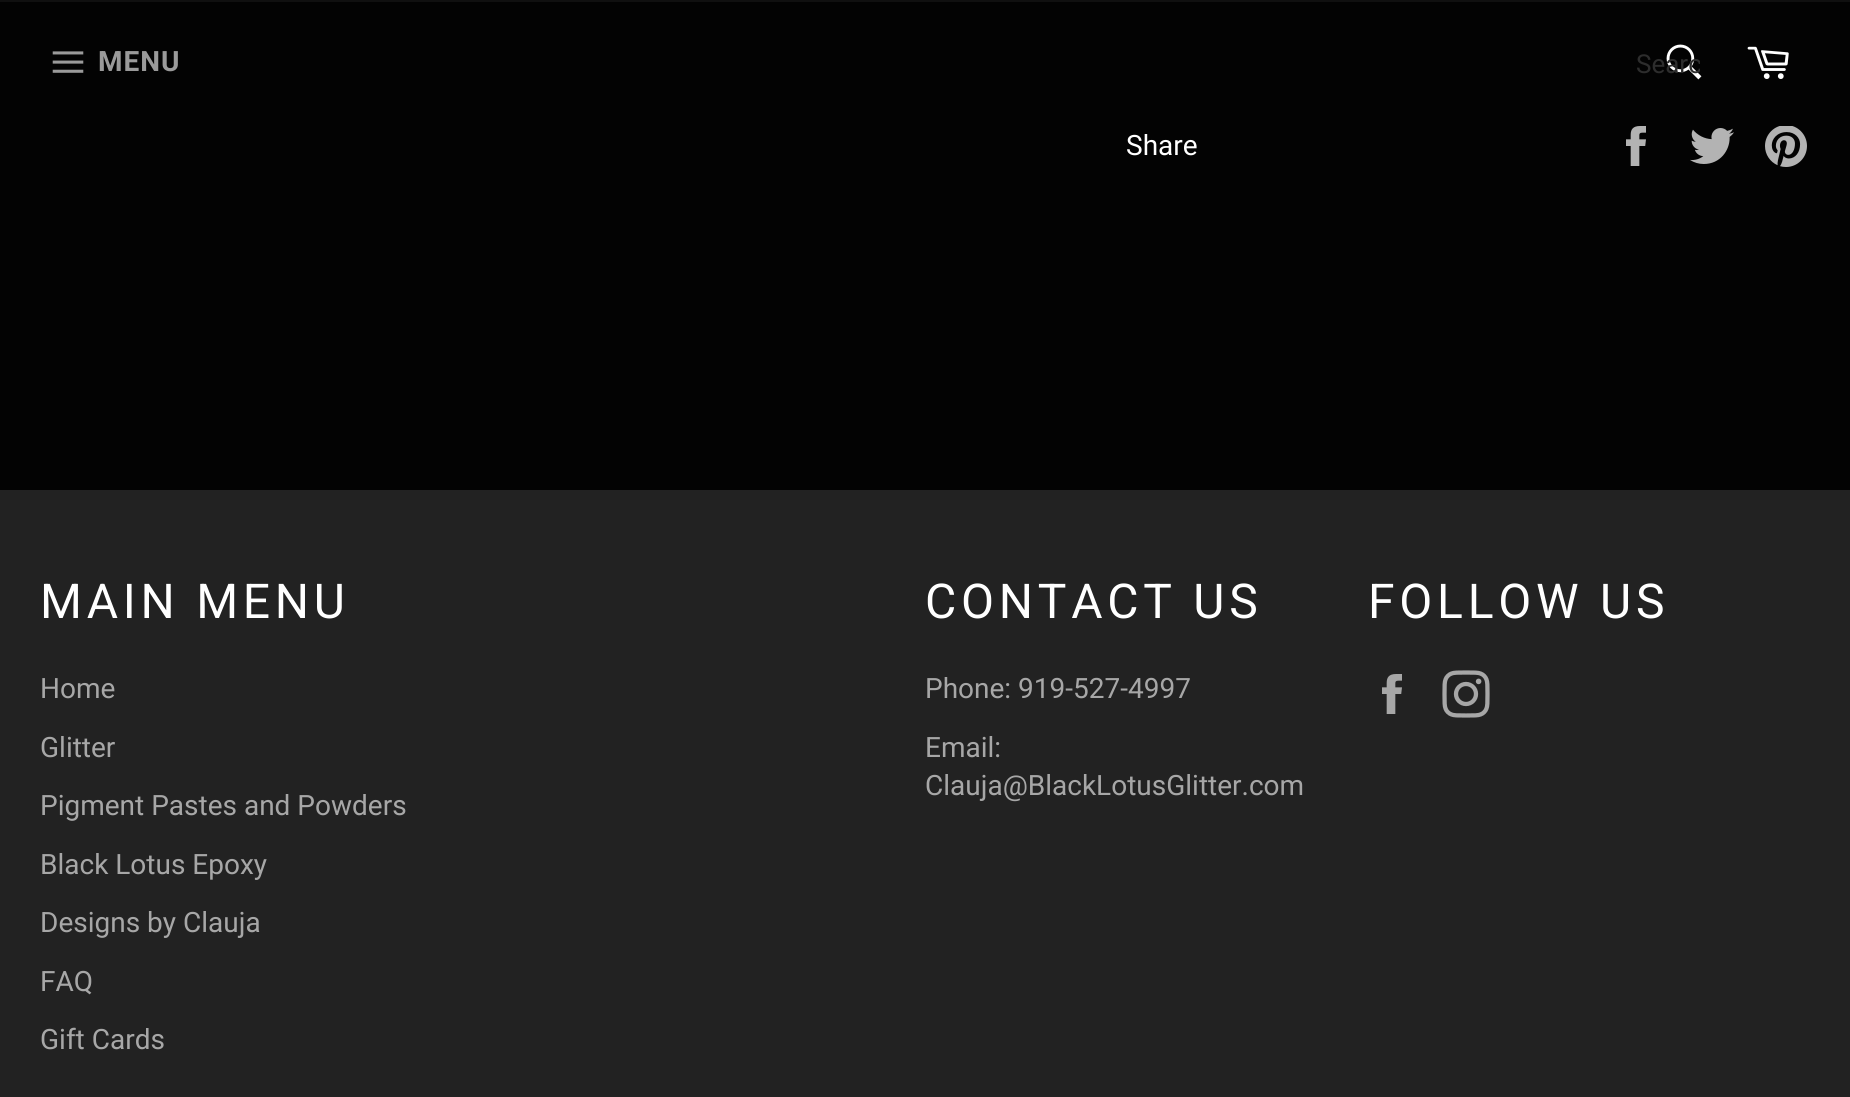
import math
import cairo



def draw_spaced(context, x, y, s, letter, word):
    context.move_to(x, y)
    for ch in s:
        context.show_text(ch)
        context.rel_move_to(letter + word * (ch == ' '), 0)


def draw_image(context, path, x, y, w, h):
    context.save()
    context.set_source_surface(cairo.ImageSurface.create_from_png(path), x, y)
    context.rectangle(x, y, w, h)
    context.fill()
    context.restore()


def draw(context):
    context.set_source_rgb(3 / 255, 3 / 255, 3 / 255)
    context.paint()
    context.set_source_rgb(16 / 255, 16 / 255, 16 / 255)
    context.rectangle(0, 0, 1850, 2)
    context.fill()
    draw_image(context, "images/1.png", 52, 51, 32, 22)
    draw_image(context, "images/2.png", 1666, 44, 36, 36)
    draw_image(context, "images/3.png", 1747, 46, 42, 33)
    draw_image(context, "images/4.png", 1626, 126, 20, 40)
    draw_image(context, "images/5.png", 1690, 128, 44, 36)
    draw_image(context, "images/6.png", 1765, 126, 42, 41)
    context.set_source_rgb(34 / 255, 34 / 255, 34 / 255)
    context.rectangle(0, 490, 1850, 607)
    context.fill()
    draw_image(context, "images/7.png", 1382, 674, 20, 40)
    draw_image(context, "images/8.png", 1442, 670, 48, 48)
    context.select_font_face("Roboto", cairo.FontSlant.NORMAL, cairo.FontWeight.BOLD)
    context.set_font_size(28)
    context.set_source_rgb(154 / 255, 154 / 255, 154 / 255)
    draw_spaced(context, 98, 71, "MENU", 1, 0)
    context.save()
    context.rectangle(1636, 50, 64, 30)
    context.clip()
    context.select_font_face("Roboto")
    context.set_font_size(26)
    context.set_source_rgb(45 / 255, 45 / 255, 45 / 255)
    context.move_to(1636, 73)
    context.show_text("Searc")
    context.restore()
    context.select_font_face("Roboto")
    context.set_source_rgb(1, 1, 1)
    context.move_to(1126, 155)
    context.show_text("Share")
    context.set_font_size(48)
    draw_spaced(context, 40, 618, "MAIN MENU", 4.75, 0)
    context.set_font_size(28)
    context.set_source_rgb(167 / 255, 167 / 255, 167 / 255)
    context.move_to(40, 698)
    context.show_text("Home")
    context.move_to(40, 757)
    context.show_text("Glitter")
    context.move_to(40, 815)
    context.show_text("Pigment Pastes and Powders")
    context.move_to(40, 874)
    context.show_text("Black Lotus Epoxy")
    context.move_to(40, 932)
    context.show_text("Designs by Clauja")
    context.move_to(40, 991)
    context.show_text("FAQ")
    context.move_to(40, 1049)
    context.show_text("Gift Cards")
    context.set_font_size(48)
    context.set_source_rgb(1, 1, 1)
    draw_spaced(context, 925, 618, "CONTACT US", 4.75, 0)
    context.set_font_size(28)
    context.set_source_rgb(167 / 255, 167 / 255, 167 / 255)
    context.move_to(925, 698)
    context.show_text("Phone: 919-527-4997")
    context.move_to(925, 757)
    context.show_text("Email:")
    context.move_to(925, 795)
    context.show_text("Clauja@BlackLotusGlitter.com")
    context.set_font_size(48)
    context.set_source_rgb(1, 1, 1)
    draw_spaced(context, 1368, 618, "FOLLOW US", 4.75, 0)


surface = cairo.ImageSurface(cairo.Format.RGB24, 1850, 1097)
context = cairo.Context(surface)
options = cairo.FontOptions()
options.set_hint_metrics(cairo.HintMetrics.OFF)
options.set_hint_style(cairo.HintStyle.NONE)
context.set_font_options(options)
context.set_miter_limit(4)
draw(context)
surface.write_to_png("out.png")
